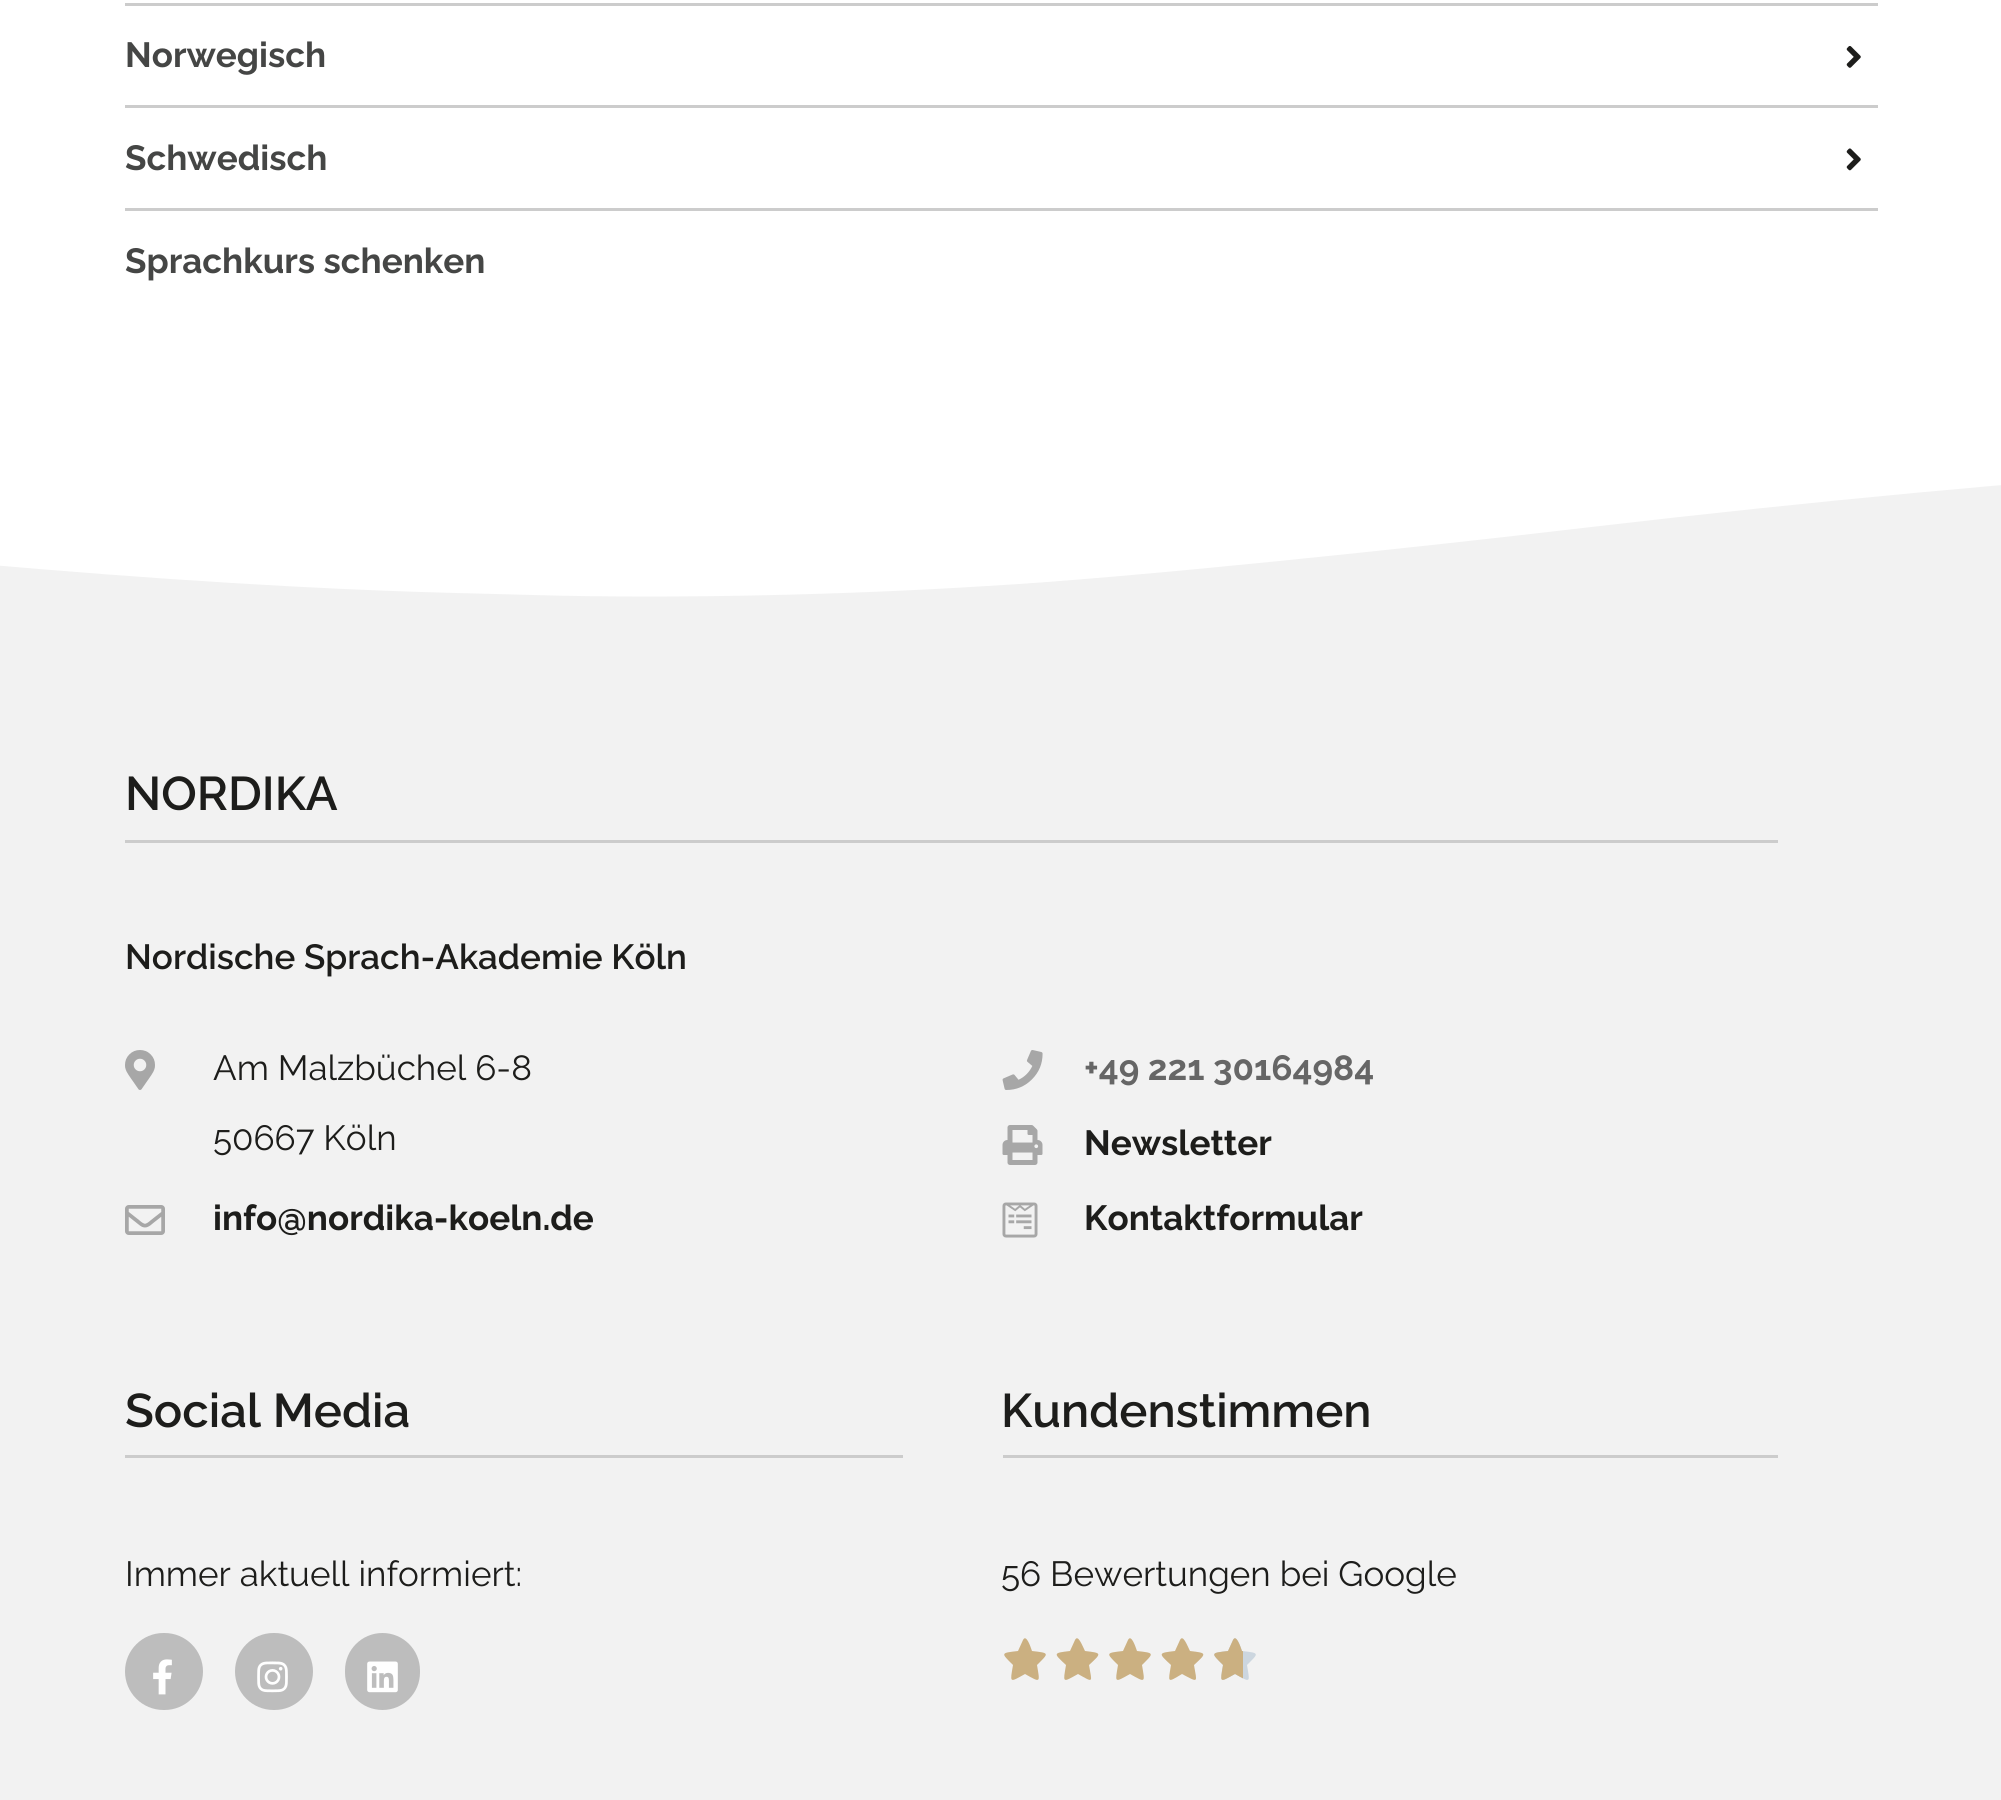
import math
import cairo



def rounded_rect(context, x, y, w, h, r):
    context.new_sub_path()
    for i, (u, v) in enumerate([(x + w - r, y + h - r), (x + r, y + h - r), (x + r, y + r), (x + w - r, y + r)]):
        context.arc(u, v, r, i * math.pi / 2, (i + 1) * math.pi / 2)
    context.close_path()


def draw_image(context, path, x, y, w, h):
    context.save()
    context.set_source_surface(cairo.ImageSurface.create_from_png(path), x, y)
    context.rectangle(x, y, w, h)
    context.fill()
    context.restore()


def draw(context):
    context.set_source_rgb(1, 1, 1)
    context.paint()
    context.set_source_rgb(204 / 255, 204 / 255, 204 / 255)
    context.rectangle(125, 3, 1753, 3)
    context.fill()
    context.rectangle(125, 105, 1753, 3)
    context.fill()
    draw_image(context, "images/1.png", 1846, 46, 15, 22)
    context.rectangle(125, 208, 1753, 3)
    context.fill()
    draw_image(context, "images/2.png", 1846, 148, 15, 23)
    context.set_source_rgb(242 / 255, 242 / 255, 242 / 255)
    context.rectangle(0, 485, 2001, 1315)
    context.fill()
    context.set_source_rgb(1, 1, 1)
    context.new_path()
    context.move_to(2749, 445)
    context.curve_to(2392, 453, 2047, 474, 1591, 527)
    context.curve_to(1413, 548, 1129, 578, 987, 586)
    context.curve_to(845, 595, 671, 599, 533, 595)
    context.curve_to(472, 593, 397, 593, 232, 583)
    context.curve_to(68, 573, -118, 556, -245, 542)
    context.curve_to(-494, 516, -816, 506, -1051, 505)
    context.curve_to(-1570, 502, -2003, 556, -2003, 556)
    context.line_to(-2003, 433)
    context.line_to(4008, 433)
    context.line_to(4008, 491)
    context.curve_to(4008, 491, 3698, 459, 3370, 448)
    context.curve_to(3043, 438, 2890, 441, 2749, 445)
    context.close_path()
    context.fill()
    context.set_source_rgb(204 / 255, 204 / 255, 204 / 255)
    context.rectangle(125, 840, 1653, 3)
    context.fill()
    draw_image(context, "images/3.png", 125, 1050, 30, 40)
    draw_image(context, "images/4.png", 125, 1205, 40, 30)
    draw_image(context, "images/5.png", 1002, 1050, 41, 40)
    draw_image(context, "images/6.png", 1002, 1125, 41, 40)
    draw_image(context, "images/7.png", 1002, 1202, 36, 36)
    context.rectangle(125, 1455, 778, 3)
    context.fill()
    context.set_source_rgb(189 / 255, 189 / 255, 189 / 255)
    rounded_rect(context, 125, 1633, 78, 77, 38.5)
    context.fill()
    draw_image(context, "images/8.png", 153, 1659, 19, 36)
    rounded_rect(context, 235, 1633, 78, 77, 38.5)
    context.fill()
    draw_image(context, "images/9.png", 257, 1661, 31, 32)
    rounded_rect(context, 345, 1633, 75, 77, 37.5)
    context.fill()
    draw_image(context, "images/10.png", 367, 1661, 31, 32)
    context.set_source_rgb(204 / 255, 204 / 255, 204 / 255)
    context.rectangle(1003, 1455, 775, 3)
    context.fill()
    context.set_source_rgb(203 / 255, 176 / 255, 129 / 255)
    context.new_path()
    context.move_to(1023, 1640)
    context.line_to(1018, 1651)
    context.curve_to(1000, 1653, 1001, 1653, 1013, 1665)
    context.curve_to(1010, 1683, 1009, 1683, 1025, 1674)
    context.curve_to(1041, 1683, 1040, 1683, 1037, 1665)
    context.curve_to(1049, 1653, 1050, 1653, 1032, 1651)
    context.curve_to(1030, 1645, 1026, 1634, 1023, 1640)
    context.close_path()
    context.fill()
    context.new_path()
    context.move_to(1075, 1640)
    context.line_to(1070, 1651)
    context.curve_to(1053, 1653, 1053, 1653, 1066, 1665)
    context.curve_to(1063, 1683, 1062, 1683, 1078, 1674)
    context.curve_to(1094, 1683, 1092, 1683, 1089, 1665)
    context.curve_to(1102, 1653, 1102, 1653, 1085, 1651)
    context.curve_to(1082, 1645, 1078, 1634, 1075, 1640)
    context.close_path()
    context.fill()
    context.new_path()
    context.move_to(1128, 1640)
    context.line_to(1123, 1651)
    context.curve_to(1105, 1653, 1106, 1653, 1118, 1665)
    context.curve_to(1115, 1683, 1114, 1683, 1130, 1674)
    context.curve_to(1146, 1683, 1145, 1683, 1142, 1665)
    context.curve_to(1154, 1653, 1155, 1653, 1137, 1651)
    context.curve_to(1135, 1645, 1131, 1634, 1128, 1640)
    context.close_path()
    context.fill()
    context.new_path()
    context.move_to(1180, 1640)
    context.line_to(1175, 1651)
    context.curve_to(1158, 1653, 1158, 1653, 1171, 1665)
    context.curve_to(1168, 1683, 1167, 1683, 1182, 1674)
    context.curve_to(1199, 1683, 1197, 1683, 1194, 1665)
    context.curve_to(1207, 1653, 1207, 1653, 1190, 1651)
    context.curve_to(1187, 1645, 1183, 1634, 1180, 1640)
    context.close_path()
    context.fill()
    context.set_source_rgb(204 / 255, 214 / 255, 223 / 255)
    context.new_path()
    context.move_to(1233, 1640)
    context.line_to(1228, 1651)
    context.curve_to(1210, 1653, 1211, 1653, 1223, 1665)
    context.curve_to(1220, 1683, 1219, 1683, 1235, 1674)
    context.curve_to(1251, 1683, 1250, 1683, 1247, 1665)
    context.curve_to(1259, 1653, 1260, 1653, 1242, 1651)
    context.curve_to(1240, 1645, 1236, 1634, 1233, 1640)
    context.close_path()
    context.fill()
    context.save()
    context.rectangle(1213, 1630, 30, 65)
    context.clip()
    context.set_source_rgb(203 / 255, 176 / 255, 129 / 255)
    context.new_path()
    context.move_to(1233, 1640)
    context.line_to(1228, 1651)
    context.curve_to(1210, 1653, 1211, 1653, 1223, 1665)
    context.curve_to(1220, 1683, 1219, 1683, 1235, 1674)
    context.curve_to(1251, 1683, 1250, 1683, 1247, 1665)
    context.curve_to(1259, 1653, 1260, 1653, 1242, 1651)
    context.curve_to(1240, 1645, 1236, 1634, 1233, 1640)
    context.close_path()
    context.fill()
    context.restore()
    context.select_font_face("Raleway Thin")
    context.set_font_size(35)
    context.set_source_rgb(69 / 255, 70 / 255, 69 / 255)
    context.move_to(125, 67)
    context.show_text("Norwegisch")
    context.move_to(125, 170)
    context.show_text("Schwedisch")
    context.move_to(125, 273)
    context.show_text("Sprachkurs schenken")
    context.select_font_face("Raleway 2 Thin")
    context.set_font_size(47.25)
    context.set_source_rgb(29 / 255, 29 / 255, 27 / 255)
    context.move_to(125, 810)
    context.show_text("NORDIKA")
    context.set_font_size(35)
    context.move_to(125, 969)
    context.show_text("Nordische Sprach-Akademie Köln")
    context.select_font_face("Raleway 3 Thin")
    context.move_to(213, 1080)
    context.show_text("Am Malzbüchel 6-8")
    context.move_to(213, 1150)
    context.show_text("50667 Köln")
    context.select_font_face("Raleway Thin")
    context.move_to(213, 1230)
    context.show_text("info@nordika-koeln.de")
    context.set_source_rgb(102 / 255, 102 / 255, 102 / 255)
    context.move_to(1084, 1080)
    context.show_text("+49 221 30164984")
    context.set_source_rgb(29 / 255, 29 / 255, 27 / 255)
    context.move_to(1084, 1155)
    context.show_text("Newsletter")
    context.move_to(1084, 1230)
    context.show_text("Kontaktformular")
    context.select_font_face("Raleway 2 Thin")
    context.set_font_size(47.25)
    context.move_to(125, 1427)
    context.show_text("Social Media")
    context.select_font_face("Raleway 3 Thin")
    context.set_font_size(35)
    context.move_to(125, 1586)
    context.show_text("Immer aktuell informiert:")
    context.select_font_face("Raleway 2 Thin")
    context.set_font_size(47.25)
    context.move_to(1001, 1427)
    context.show_text("Kundenstimmen")
    context.select_font_face("Raleway 3 Thin")
    context.set_font_size(35)
    context.move_to(1001, 1586)
    context.show_text("56 Bewertungen bei Google")


surface = cairo.ImageSurface(cairo.Format.RGB24, 2001, 1800)
context = cairo.Context(surface)
options = cairo.FontOptions()
options.set_hint_metrics(cairo.HintMetrics.OFF)
options.set_hint_style(cairo.HintStyle.NONE)
context.set_font_options(options)
context.set_miter_limit(4)
draw(context)
surface.write_to_png("out.png")
